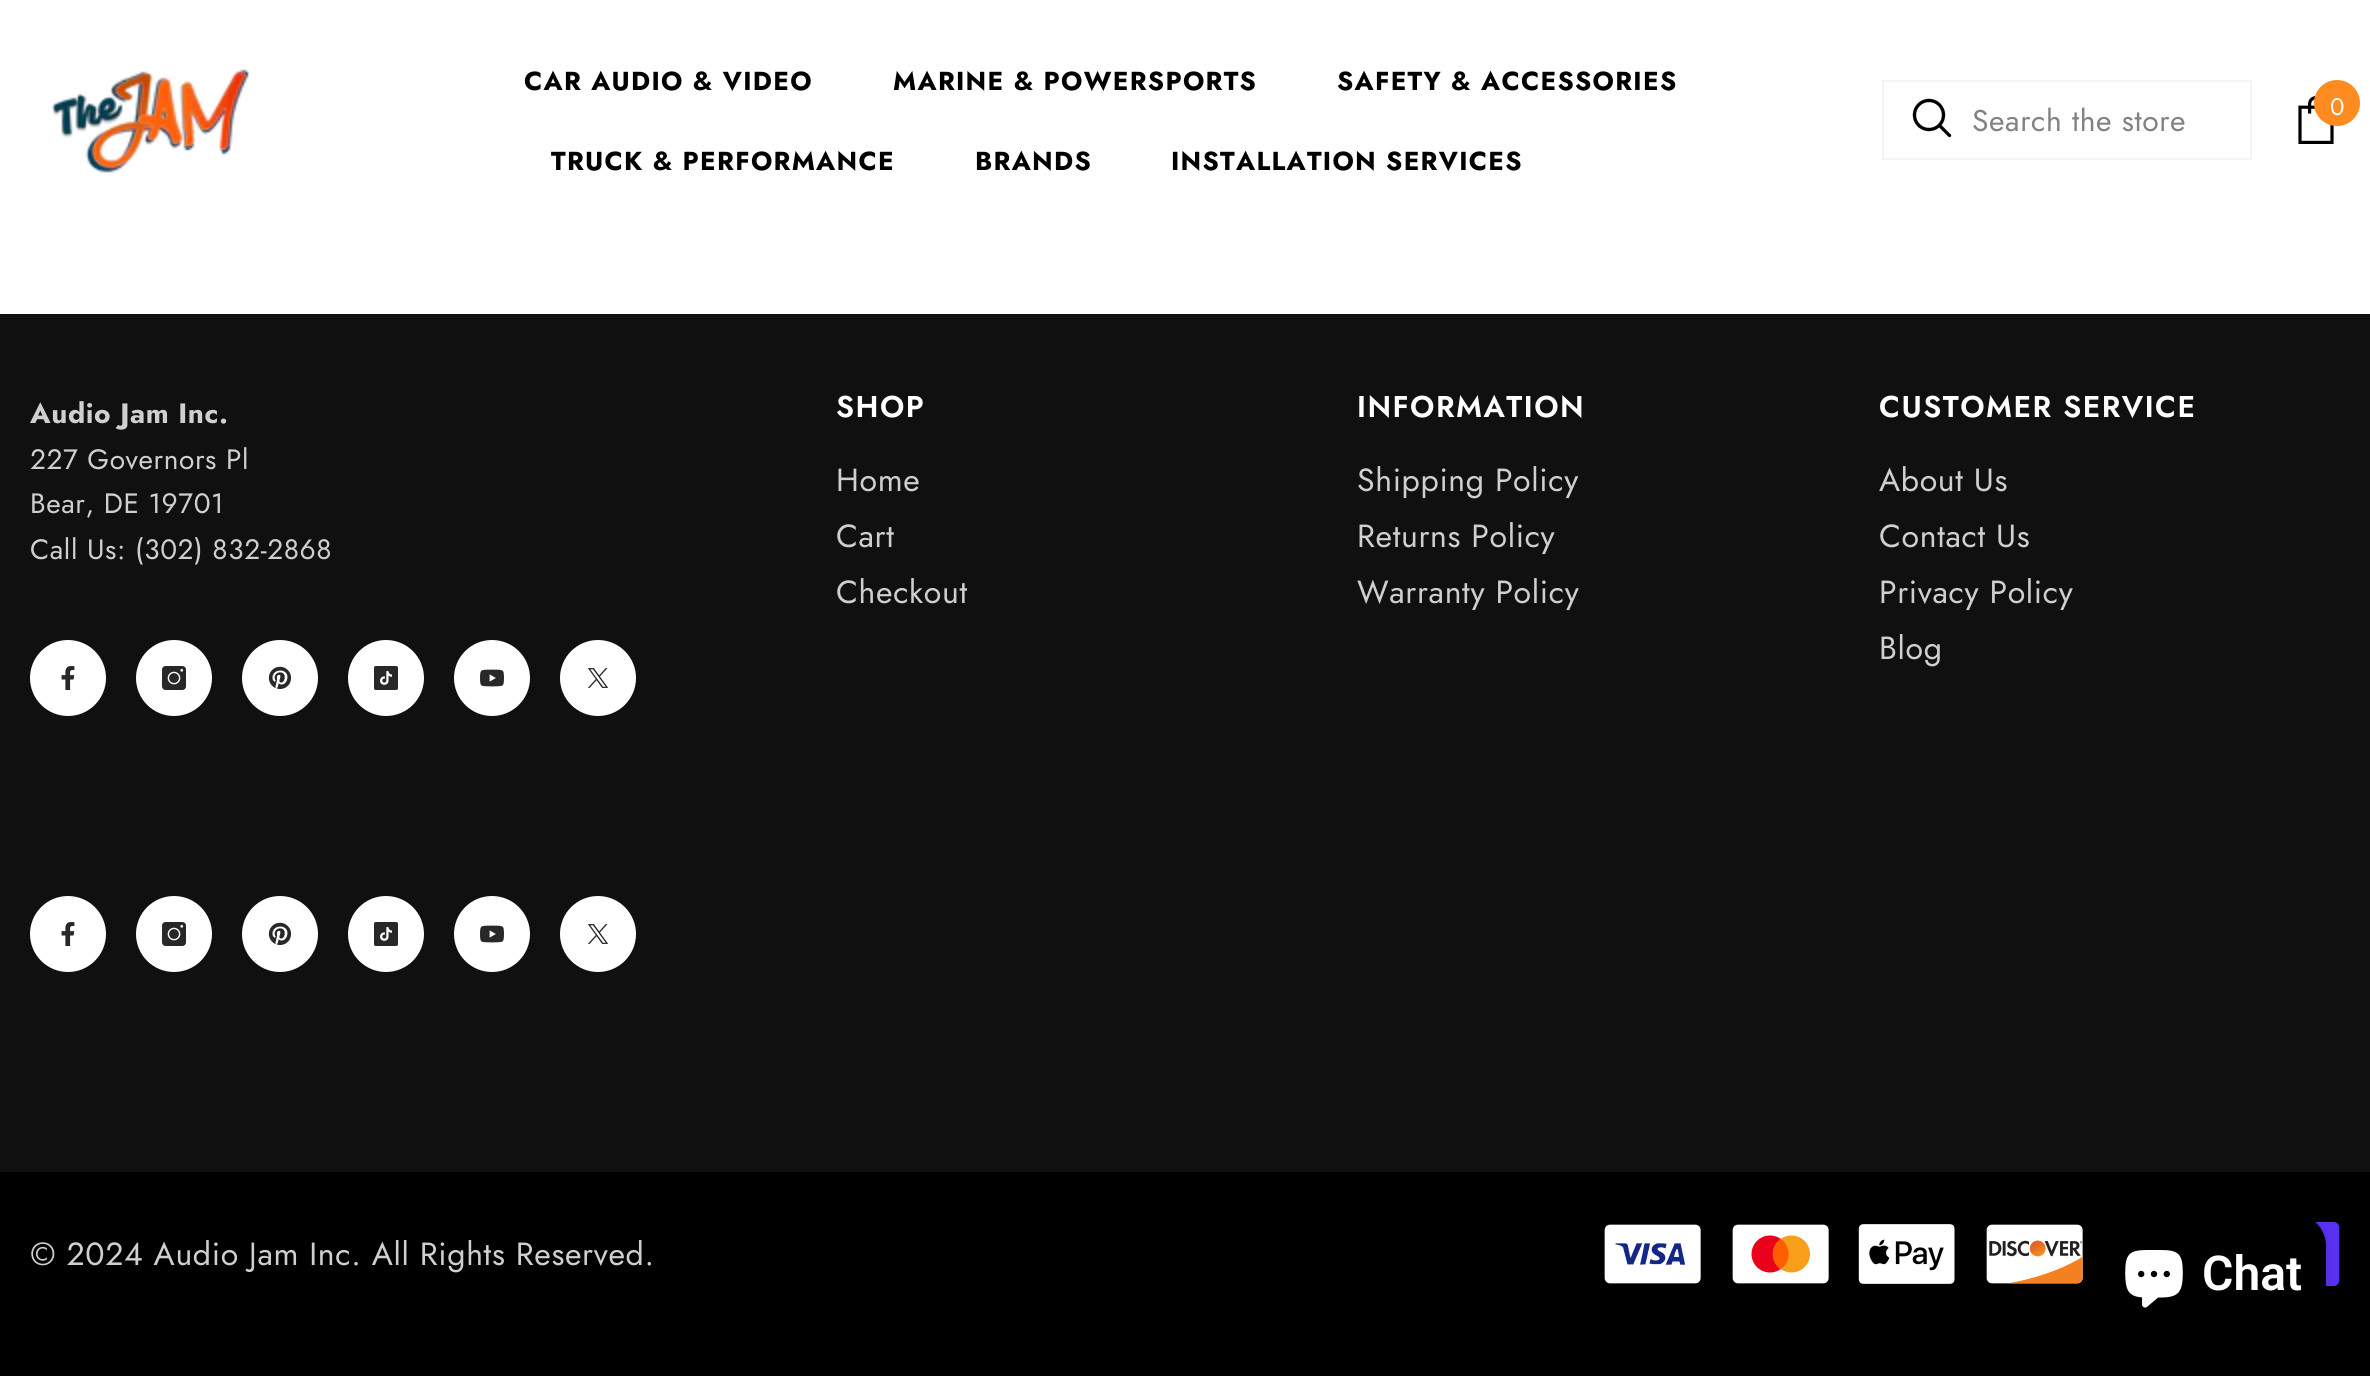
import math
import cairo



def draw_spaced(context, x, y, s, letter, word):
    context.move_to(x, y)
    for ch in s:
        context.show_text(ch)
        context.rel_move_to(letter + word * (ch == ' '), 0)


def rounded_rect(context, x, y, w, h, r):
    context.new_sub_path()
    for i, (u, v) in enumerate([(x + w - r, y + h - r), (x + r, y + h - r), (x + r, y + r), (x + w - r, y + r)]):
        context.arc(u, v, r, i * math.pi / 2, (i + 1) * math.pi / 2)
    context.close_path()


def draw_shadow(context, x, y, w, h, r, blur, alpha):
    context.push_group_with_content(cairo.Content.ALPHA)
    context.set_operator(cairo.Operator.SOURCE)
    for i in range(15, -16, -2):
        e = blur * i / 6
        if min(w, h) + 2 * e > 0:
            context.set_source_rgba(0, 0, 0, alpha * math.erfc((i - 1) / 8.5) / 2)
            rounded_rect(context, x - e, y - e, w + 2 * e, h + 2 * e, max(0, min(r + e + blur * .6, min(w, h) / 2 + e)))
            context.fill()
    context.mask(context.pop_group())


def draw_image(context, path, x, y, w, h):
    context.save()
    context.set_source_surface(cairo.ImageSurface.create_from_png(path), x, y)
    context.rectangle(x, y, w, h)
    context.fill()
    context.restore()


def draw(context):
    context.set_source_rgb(1, 1, 1)
    context.paint()
    draw_image(context, "images/1.png", 51, 69, 199, 104)
    context.rectangle(1883, 81, 368, 78)
    context.set_source_rgb(245 / 255, 245 / 255, 245 / 255)
    context.stroke()
    draw_image(context, "images/2.png", 1912, 98, 40, 40)
    draw_image(context, "images/3.png", 2298, 96, 36, 48)
    context.set_source_rgb(1, 139 / 255, 33 / 255)
    context.arc(2337, 103, 23, 0, 2 * math.pi)
    context.fill()
    context.set_source_rgb(16 / 255, 16 / 255, 16 / 255)
    context.rectangle(0, 314, 2370, 858)
    context.fill()
    context.set_source_rgb(1, 1, 1)
    context.arc(68, 678, 37, 0, 2 * math.pi)
    context.fill_preserve()
    context.stroke()
    draw_image(context, "images/4.png", 61, 666, 14, 24)
    context.arc(174, 678, 37, 0, 2 * math.pi)
    context.fill_preserve()
    context.stroke()
    draw_image(context, "images/5.png", 162, 666, 24, 24)
    context.arc(280, 678, 37, 0, 2 * math.pi)
    context.fill_preserve()
    context.stroke()
    draw_image(context, "images/6.png", 268, 666, 24, 23)
    context.arc(386, 678, 37, 0, 2 * math.pi)
    context.fill_preserve()
    context.stroke()
    draw_image(context, "images/7.png", 374, 666, 24, 24)
    context.arc(492, 678, 37, 0, 2 * math.pi)
    context.fill_preserve()
    context.stroke()
    draw_image(context, "images/8.png", 480, 669, 24, 18)
    context.arc(598, 678, 37, 0, 2 * math.pi)
    context.fill_preserve()
    context.stroke()
    draw_image(context, "images/9.png", 587, 668, 22, 20)
    context.arc(68, 934, 37, 0, 2 * math.pi)
    context.fill_preserve()
    context.stroke()
    draw_image(context, "images/4.png", 61, 922, 14, 24)
    context.arc(174, 934, 37, 0, 2 * math.pi)
    context.fill_preserve()
    context.stroke()
    draw_image(context, "images/5.png", 162, 922, 24, 24)
    context.arc(280, 934, 37, 0, 2 * math.pi)
    context.fill_preserve()
    context.stroke()
    draw_image(context, "images/6.png", 268, 922, 24, 23)
    context.arc(386, 934, 37, 0, 2 * math.pi)
    context.fill_preserve()
    context.stroke()
    draw_image(context, "images/7.png", 374, 922, 24, 24)
    context.arc(492, 934, 37, 0, 2 * math.pi)
    context.fill_preserve()
    context.stroke()
    draw_image(context, "images/8.png", 480, 925, 24, 18)
    context.arc(598, 934, 37, 0, 2 * math.pi)
    context.fill_preserve()
    context.stroke()
    draw_image(context, "images/9.png", 587, 924, 22, 20)
    context.set_source_rgb(0, 0, 0)
    context.rectangle(0, 1172, 2370, 204)
    context.fill()
    draw_image(context, "images/10.png", 1604, 1224, 97, 60)
    draw_image(context, "images/11.png", 1732, 1224, 97, 60)
    draw_image(context, "images/12.png", 1858, 1224, 97, 60)
    draw_image(context, "images/13.png", 1986, 1224, 97, 60)
    draw_image(context, "images/14.png", 2315, 1222, 25, 64)
    context.set_source_rgb(0, 0, 0)
    draw_shadow(context, 2100, 1214, 226, 120, 32, 5, 0.15)
    context.set_source_rgb(0, 0, 0)
    rounded_rect(context, 2100, 1214, 226, 120, 32)
    context.fill()
    draw_image(context, "images/15.png", 2125, 1250, 58, 58)
    context.select_font_face("Jost", cairo.FontSlant.NORMAL, cairo.FontWeight.BOLD)
    context.set_font_size(26)
    draw_spaced(context, 524, 90, "CAR AUDIO & VIDEO", 1.3, 0)
    draw_spaced(context, 893, 90, "MARINE & POWERSPORTS", 1.3, 0)
    draw_spaced(context, 1337, 90, "SAFETY & ACCESSORIES", 1.3, 0)
    draw_spaced(context, 551, 170, "TRUCK & PERFORMANCE", 1.3, 0)
    draw_spaced(context, 975, 170, "BRANDS", 1.3, 0)
    draw_spaced(context, 1171, 170, "INSTALLATION SERVICES", 1.3, 0)
    context.select_font_face("Jost")
    context.set_font_size(30)
    context.set_source_rgb(130 / 255, 130 / 255, 130 / 255)
    draw_spaced(context, 1972, 131, "Search the store", 0.6, 0)
    context.set_font_size(24)
    context.set_source_rgb(1, 1, 1)
    context.move_to(2330, 115)
    context.show_text("0")
    context.select_font_face("Jost", cairo.FontSlant.NORMAL, cairo.FontWeight.BOLD)
    context.set_font_size(28)
    context.set_source_rgb(207 / 255, 207 / 255, 207 / 255)
    draw_spaced(context, 30, 423, "Audio Jam Inc.", 0.6, 0)
    context.select_font_face("Jost")
    draw_spaced(context, 30, 469, "227 Governors Pl", 0.6, 0)
    draw_spaced(context, 30, 513, "Bear, DE 19701", 0.6, 0)
    draw_spaced(context, 30, 559, "Call Us: (302) 832-2868", 0.6, 0)
    context.select_font_face("Jost SemiBold")
    context.set_font_size(30)
    context.set_source_rgb(1, 1, 1)
    draw_spaced(context, 836, 417, "SHOP", 1.5, 0)
    context.select_font_face("Jost")
    context.set_font_size(32)
    context.set_source_rgb(207 / 255, 207 / 255, 207 / 255)
    draw_spaced(context, 836, 491, "Home", 0.65, 0)
    draw_spaced(context, 836, 547, "Cart", 0.65, 0)
    draw_spaced(context, 836, 603, "Checkout", 0.65, 0)
    context.select_font_face("Jost SemiBold")
    context.set_font_size(30)
    context.set_source_rgb(1, 1, 1)
    draw_spaced(context, 1357, 417, "INFORMATION", 1.5, 0)
    context.select_font_face("Jost")
    context.set_font_size(32)
    context.set_source_rgb(207 / 255, 207 / 255, 207 / 255)
    draw_spaced(context, 1357, 491, "Shipping Policy", 0.65, 0)
    draw_spaced(context, 1357, 547, "Returns Policy", 0.65, 0)
    draw_spaced(context, 1357, 603, "Warranty Policy", 0.65, 0)
    context.select_font_face("Jost SemiBold")
    context.set_font_size(30)
    context.set_source_rgb(1, 1, 1)
    draw_spaced(context, 1879, 417, "CUSTOMER SERVICE", 1.5, 0)
    context.select_font_face("Jost")
    context.set_font_size(32)
    context.set_source_rgb(207 / 255, 207 / 255, 207 / 255)
    draw_spaced(context, 1879, 491, "About Us", 0.65, 0)
    draw_spaced(context, 1879, 547, "Contact Us", 0.65, 0)
    draw_spaced(context, 1879, 603, "Privacy Policy", 0.65, 0)
    draw_spaced(context, 1879, 659, "Blog", 0.65, 0)
    draw_spaced(context, 30, 1265, "© 2024 Audio Jam Inc. All Rights Reserved.", 0.65, 0)
    context.select_font_face("Roboto SemiBold")
    context.set_font_size(48)
    context.set_source_rgb(1, 1, 1)
    context.move_to(2202, 1290)
    context.show_text("Chat")


surface = cairo.ImageSurface(cairo.Format.RGB24, 2370, 1376)
context = cairo.Context(surface)
options = cairo.FontOptions()
options.set_hint_metrics(cairo.HintMetrics.OFF)
options.set_hint_style(cairo.HintStyle.NONE)
context.set_font_options(options)
context.set_miter_limit(4)
draw(context)
surface.write_to_png("out.png")
